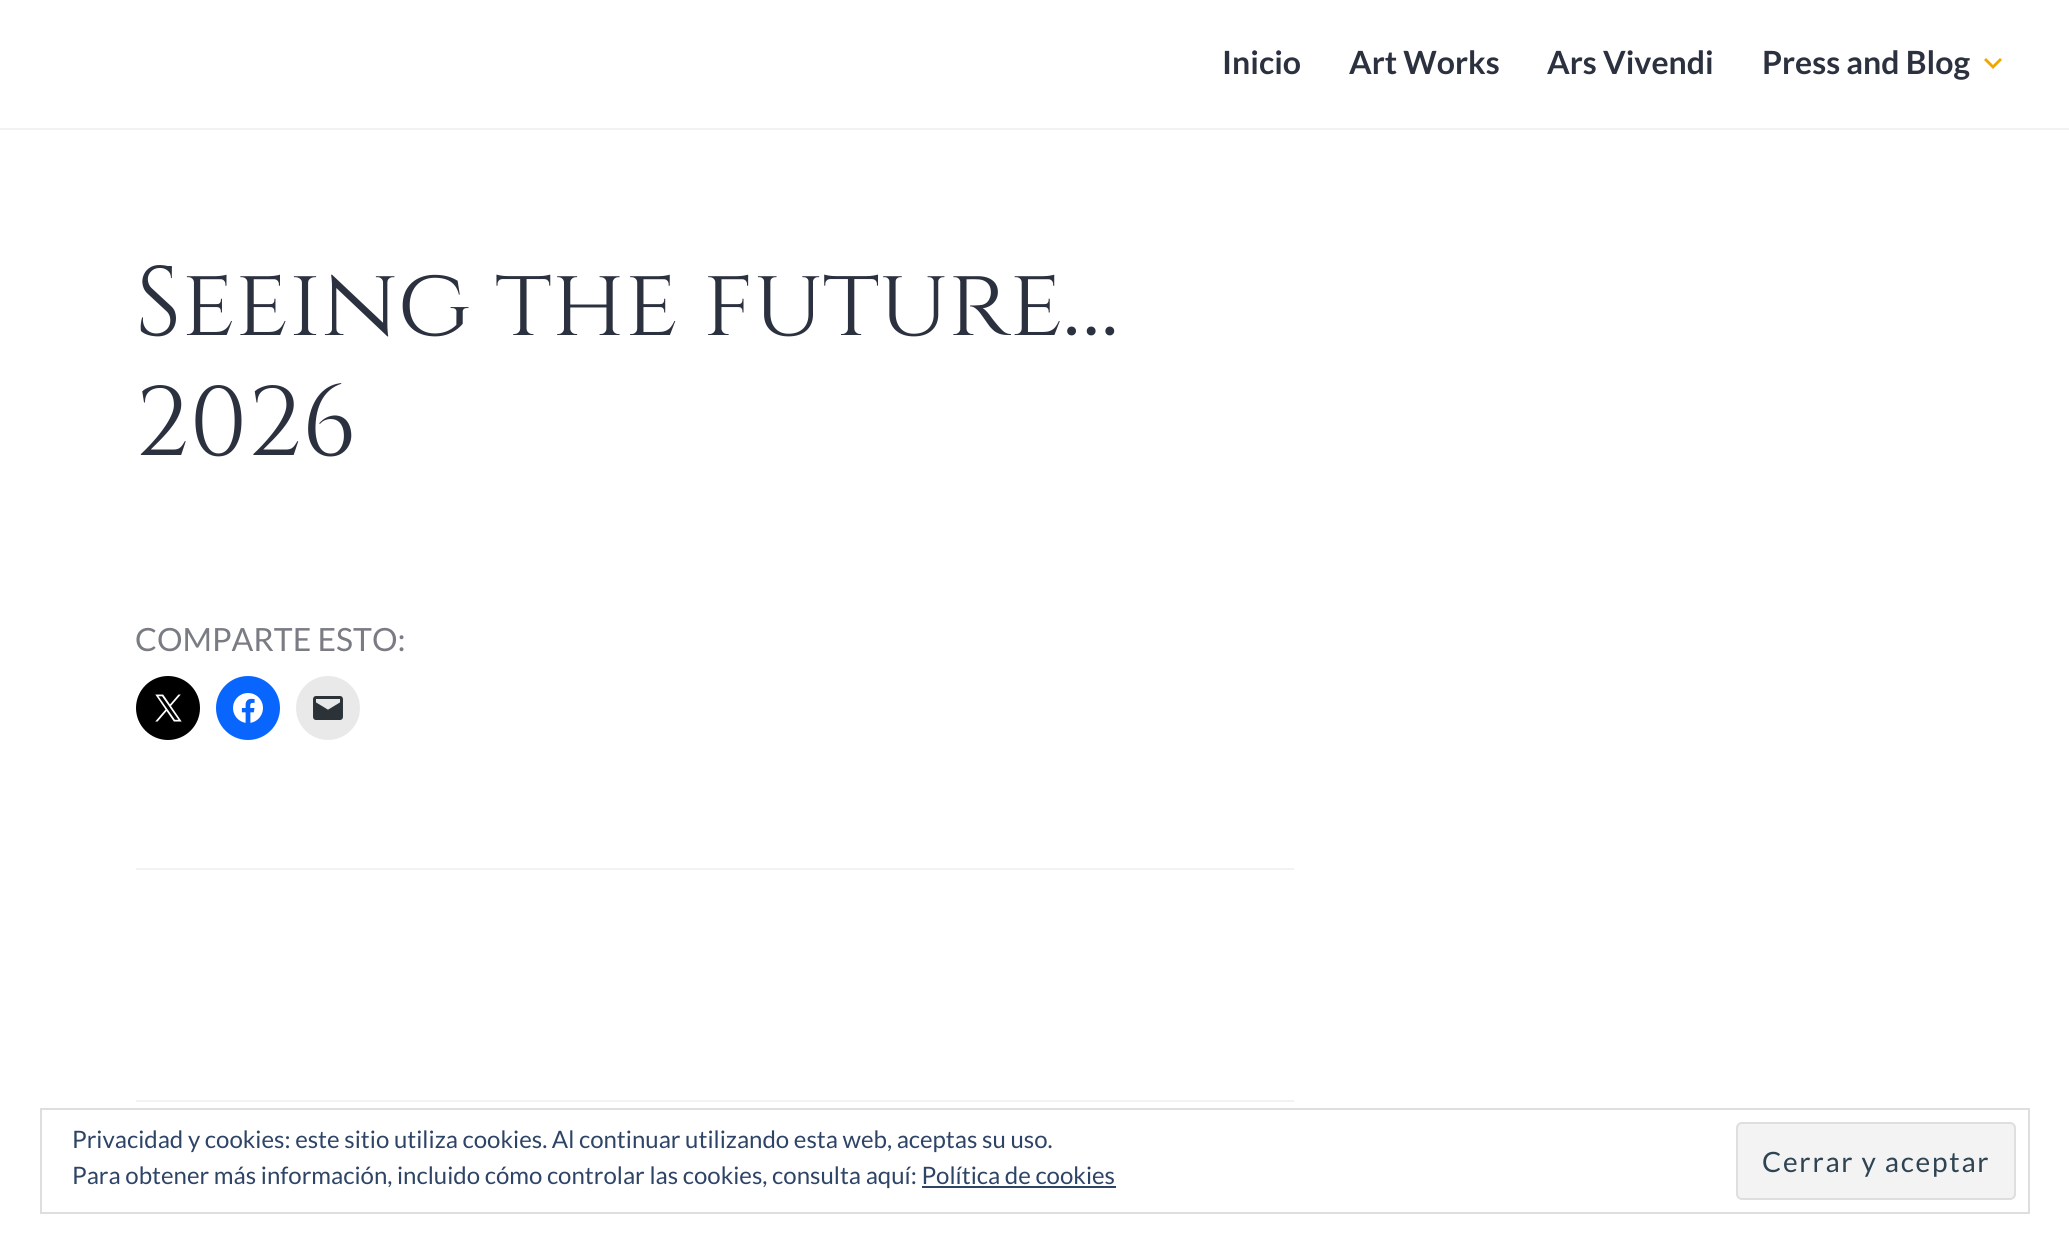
import math
import cairo



def draw_spaced(context, x, y, s, letter, word):
    context.move_to(x, y)
    for ch in s:
        context.show_text(ch)
        context.rel_move_to(letter + word * (ch == ' '), 0)


def rounded_rect(context, x, y, w, h, r):
    context.new_sub_path()
    for i, (u, v) in enumerate([(x + w - r, y + h - r), (x + r, y + h - r), (x + r, y + r), (x + w - r, y + r)]):
        context.arc(u, v, r, i * math.pi / 2, (i + 1) * math.pi / 2)
    context.close_path()


def draw_image(context, path, x, y, w, h):
    context.save()
    context.set_source_surface(cairo.ImageSurface.create_from_png(path), x, y)
    context.rectangle(x, y, w, h)
    context.fill()
    context.restore()


def draw(context):
    context.set_source_rgb(1, 1, 1)
    context.paint()
    context.set_source_rgb(242 / 255, 242 / 255, 242 / 255)
    context.rectangle(0, 128, 2069, 2)
    context.fill()
    context.set_source_rgb(239 / 255, 167 / 255, 0)
    context.new_path()
    context.move_to(2000, 58)
    context.line_to(2002, 60)
    context.line_to(1993, 69)
    context.line_to(1984, 60)
    context.line_to(1986, 58)
    context.line_to(1993, 65)
    context.close_path()
    context.fill()
    context.set_source_rgb(242 / 255, 242 / 255, 242 / 255)
    context.rectangle(136, 868, 1158, 2)
    context.fill()
    context.set_source_rgb(0, 0, 0)
    context.arc(168, 708, 32, 0, 2 * math.pi)
    context.fill()
    draw_image(context, "images/1.png", 155, 694, 27, 28)
    context.set_source_rgb(8 / 255, 102 / 255, 1)
    context.arc(248, 708, 32, 0, 2 * math.pi)
    context.fill()
    draw_image(context, "images/2.png", 233, 693, 30, 30)
    context.set_source_rgb(233 / 255, 233 / 255, 233 / 255)
    context.arc(328, 708, 32, 0, 2 * math.pi)
    context.fill()
    draw_image(context, "images/3.png", 313, 696, 30, 24)
    context.set_source_rgb(242 / 255, 242 / 255, 242 / 255)
    context.rectangle(136, 1100, 1158, 2)
    context.fill()
    context.rectangle(41, 1109, 1988, 104)
    context.set_source_rgb(222 / 255, 222 / 255, 222 / 255)
    context.stroke()
    context.set_source_rgb(243 / 255, 243 / 255, 243 / 255)
    rounded_rect(context, 1737, 1123, 278, 76, 5)
    context.fill_preserve()
    context.set_source_rgb(222 / 255, 222 / 255, 222 / 255)
    context.stroke()
    context.set_source_rgb(46 / 255, 68 / 255, 103 / 255)
    context.rectangle(922, 1186, 194, 2)
    context.fill()
    context.select_font_face("Lato", cairo.FontSlant.NORMAL, cairo.FontWeight.BOLD)
    context.set_font_size(32)
    context.set_source_rgb(44 / 255, 49 / 255, 63 / 255)
    context.move_to(1222, 74)
    context.show_text("Inicio")
    context.move_to(1349, 74)
    context.show_text("Art Works")
    context.move_to(1547, 74)
    context.show_text("Ars Vivendi")
    context.move_to(1762, 74)
    context.show_text("Press and Blog")
    context.select_font_face("Cinzel")
    context.set_font_size(98)
    context.move_to(135, 335)
    context.show_text("Seeing the future…")
    context.move_to(135, 455)
    context.show_text("2026")
    context.select_font_face("Lato")
    context.set_font_size(32)
    context.set_source_rgb(122 / 255, 124 / 255, 132 / 255)
    context.move_to(135, 651)
    context.show_text("COMPARTE ESTO:")
    context.set_font_size(24)
    context.set_source_rgb(46 / 255, 68 / 255, 103 / 255)
    context.move_to(72, 1148)
    context.show_text("Privacidad y cookies: este sitio utiliza cookies. Al continuar utilizando esta web, aceptas su uso.")
    context.move_to(72, 1184)
    context.show_text("Para obtener más información, incluido cómo controlar las cookies, consulta aquí: Política de cookies")
    context.set_font_size(28)
    context.set_source_rgb(46 / 255, 68 / 255, 83 / 255)
    draw_spaced(context, 1762, 1172, "Cerrar y aceptar", 1.75, 0)


surface = cairo.ImageSurface(cairo.Format.RGB24, 2069, 1253)
context = cairo.Context(surface)
options = cairo.FontOptions()
options.set_hint_metrics(cairo.HintMetrics.OFF)
options.set_hint_style(cairo.HintStyle.NONE)
context.set_font_options(options)
context.set_miter_limit(4)
draw(context)
surface.write_to_png("out.png")
